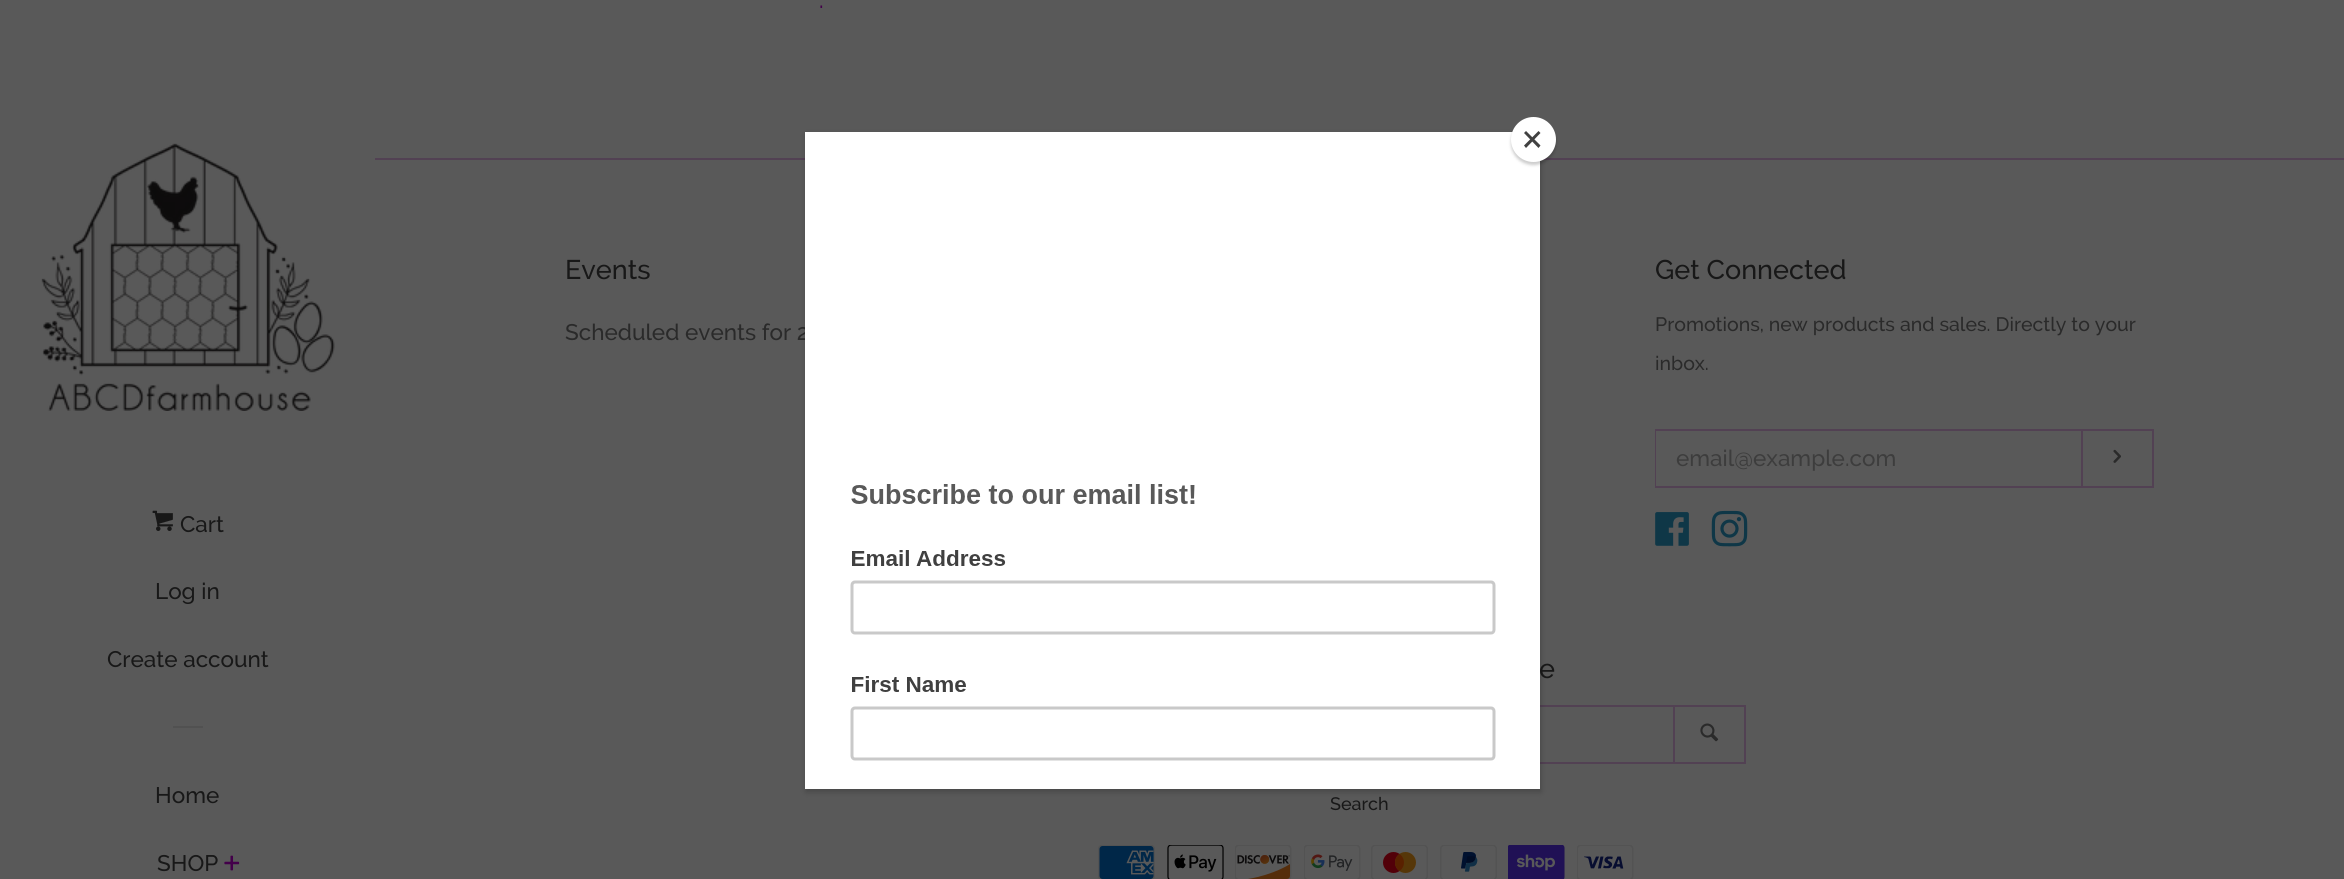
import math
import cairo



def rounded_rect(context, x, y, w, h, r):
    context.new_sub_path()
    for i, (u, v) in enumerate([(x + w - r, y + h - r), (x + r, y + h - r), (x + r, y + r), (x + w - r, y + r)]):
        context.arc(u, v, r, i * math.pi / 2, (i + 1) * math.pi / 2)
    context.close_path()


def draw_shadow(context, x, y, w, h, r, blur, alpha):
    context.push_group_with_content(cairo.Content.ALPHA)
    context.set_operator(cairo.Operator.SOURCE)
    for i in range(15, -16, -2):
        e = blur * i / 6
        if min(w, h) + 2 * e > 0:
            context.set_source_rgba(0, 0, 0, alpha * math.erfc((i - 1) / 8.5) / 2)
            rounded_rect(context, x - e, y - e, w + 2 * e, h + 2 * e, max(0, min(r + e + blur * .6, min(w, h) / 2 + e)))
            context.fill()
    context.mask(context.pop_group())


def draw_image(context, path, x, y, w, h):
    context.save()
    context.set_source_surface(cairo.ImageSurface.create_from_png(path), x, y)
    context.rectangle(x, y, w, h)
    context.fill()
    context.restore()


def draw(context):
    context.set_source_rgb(89 / 255, 89 / 255, 89 / 255)
    context.paint()
    context.set_source_rgb(82 / 255, 65 / 255, 83 / 255)
    context.rectangle(375, 158, 1969, 2)
    context.fill()
    context.rectangle(1656, 430, 497, 57)
    context.stroke()
    context.set_source_rgb(89 / 255, 89 / 255, 89 / 255)
    context.rectangle(1656, 431, 1, 55)
    context.fill()
    context.set_source_rgb(82 / 255, 65 / 255, 83 / 255)
    context.rectangle(2081, 431, 2, 55)
    context.fill()
    draw_image(context, "images/1.png", 2113, 449, 8, 14)
    draw_image(context, "images/2.png", 1655, 512, 34, 34)
    draw_image(context, "images/3.png", 1711, 510, 37, 37)
    context.rectangle(975, 706, 770, 57)
    context.stroke()
    context.rectangle(1673, 707, 2, 55)
    context.fill()
    draw_image(context, "images/4.png", 1700, 723, 19, 19)
    draw_image(context, "images/5.png", 1098, 845, 57, 34)
    draw_image(context, "images/6.png", 1167, 845, 57, 34)
    draw_image(context, "images/7.png", 1235, 845, 57, 34)
    draw_image(context, "images/8.png", 1304, 845, 57, 34)
    draw_image(context, "images/9.png", 1371, 845, 57, 34)
    draw_image(context, "images/10.png", 1440, 845, 57, 34)
    draw_image(context, "images/11.png", 1508, 845, 57, 34)
    draw_image(context, "images/12.png", 1577, 845, 57, 34)
    draw_image(context, "images/13.png", 41, 143, 294, 268)
    draw_image(context, "images/14.png", 152, 510, 21, 21)
    context.set_source_rgb(81 / 255, 81 / 255, 81 / 255)
    context.rectangle(173, 726, 30, 2)
    context.fill()
    draw_image(context, "images/15.png", 224, 855, 16, 16)
    context.set_source_rgb(0, 0, 0)
    draw_shadow(context, 806, 135, 735, 657, 0, 3, 0.2)
    context.select_font_face("Raleway Medium")
    context.set_font_size(22.5)
    context.set_source_rgb(67 / 255, 0, 74 / 255)
    context.move_to(819, 8)
    context.show_text(".")
    context.set_font_size(27)
    context.set_source_rgb(24 / 255, 24 / 255, 24 / 255)
    context.move_to(565, 279)
    context.show_text("Events")
    context.set_font_size(22.5)
    context.set_source_rgb(42 / 255, 42 / 255, 42 / 255)
    context.move_to(565, 340)
    context.show_text("Scheduled events for 2")
    context.set_font_size(27)
    context.set_source_rgb(24 / 255, 24 / 255, 24 / 255)
    context.move_to(1655, 279)
    context.show_text("Get Connected")
    context.set_font_size(19.5)
    context.set_source_rgb(42 / 255, 42 / 255, 42 / 255)
    context.move_to(1655, 331)
    context.show_text("Promotions, new products and sales. Directly to your")
    context.move_to(1655, 370)
    context.show_text("inbox.")
    context.set_font_size(22.5)
    context.set_source_rgb(61 / 255, 61 / 255, 61 / 255)
    context.move_to(1676, 466)
    context.show_text("email@example.com")
    context.set_font_size(27)
    context.set_source_rgb(24 / 255, 24 / 255, 24 / 255)
    context.move_to(1539, 678)
    context.show_text("e")
    context.set_font_size(18)
    context.move_to(1330, 810)
    context.show_text("Search")
    context.set_font_size(22.5)
    context.move_to(180, 532)
    context.show_text("Cart")
    context.move_to(155, 599)
    context.show_text("Log in")
    context.move_to(107, 667)
    context.show_text("Create account")
    context.move_to(155, 803)
    context.show_text("Home")
    context.move_to(157, 871)
    context.show_text("SHOP")
    draw_image(context, "images/16.png", 805, 132, 735, 657)
    context.set_source_rgb(0, 0, 0)
    draw_shadow(context, 1511, 120, 45, 45, 22.5, 1.5, 0.2)
    context.set_source_rgb(1, 1, 1)
    context.arc(1533.5, 139.5, 22.5, 0, 2 * math.pi)
    context.fill()
    context.set_source_rgb(65 / 255, 65 / 255, 65 / 255)
    context.new_path()
    context.move_to(1538.5, 131)
    context.line_to(1540.5, 133)
    context.line_to(1526, 148)
    context.line_to(1524, 145.5)
    context.close_path()
    context.fill()
    context.new_path()
    context.move_to(1524, 133)
    context.line_to(1526, 131)
    context.line_to(1540.5, 145.5)
    context.line_to(1538.5, 148)
    context.close_path()
    context.fill()


surface = cairo.ImageSurface(cairo.Format.RGB24, 2344, 879)
context = cairo.Context(surface)
options = cairo.FontOptions()
options.set_hint_metrics(cairo.HintMetrics.OFF)
options.set_hint_style(cairo.HintStyle.NONE)
context.set_font_options(options)
context.set_miter_limit(4)
draw(context)
surface.write_to_png("out.png")
